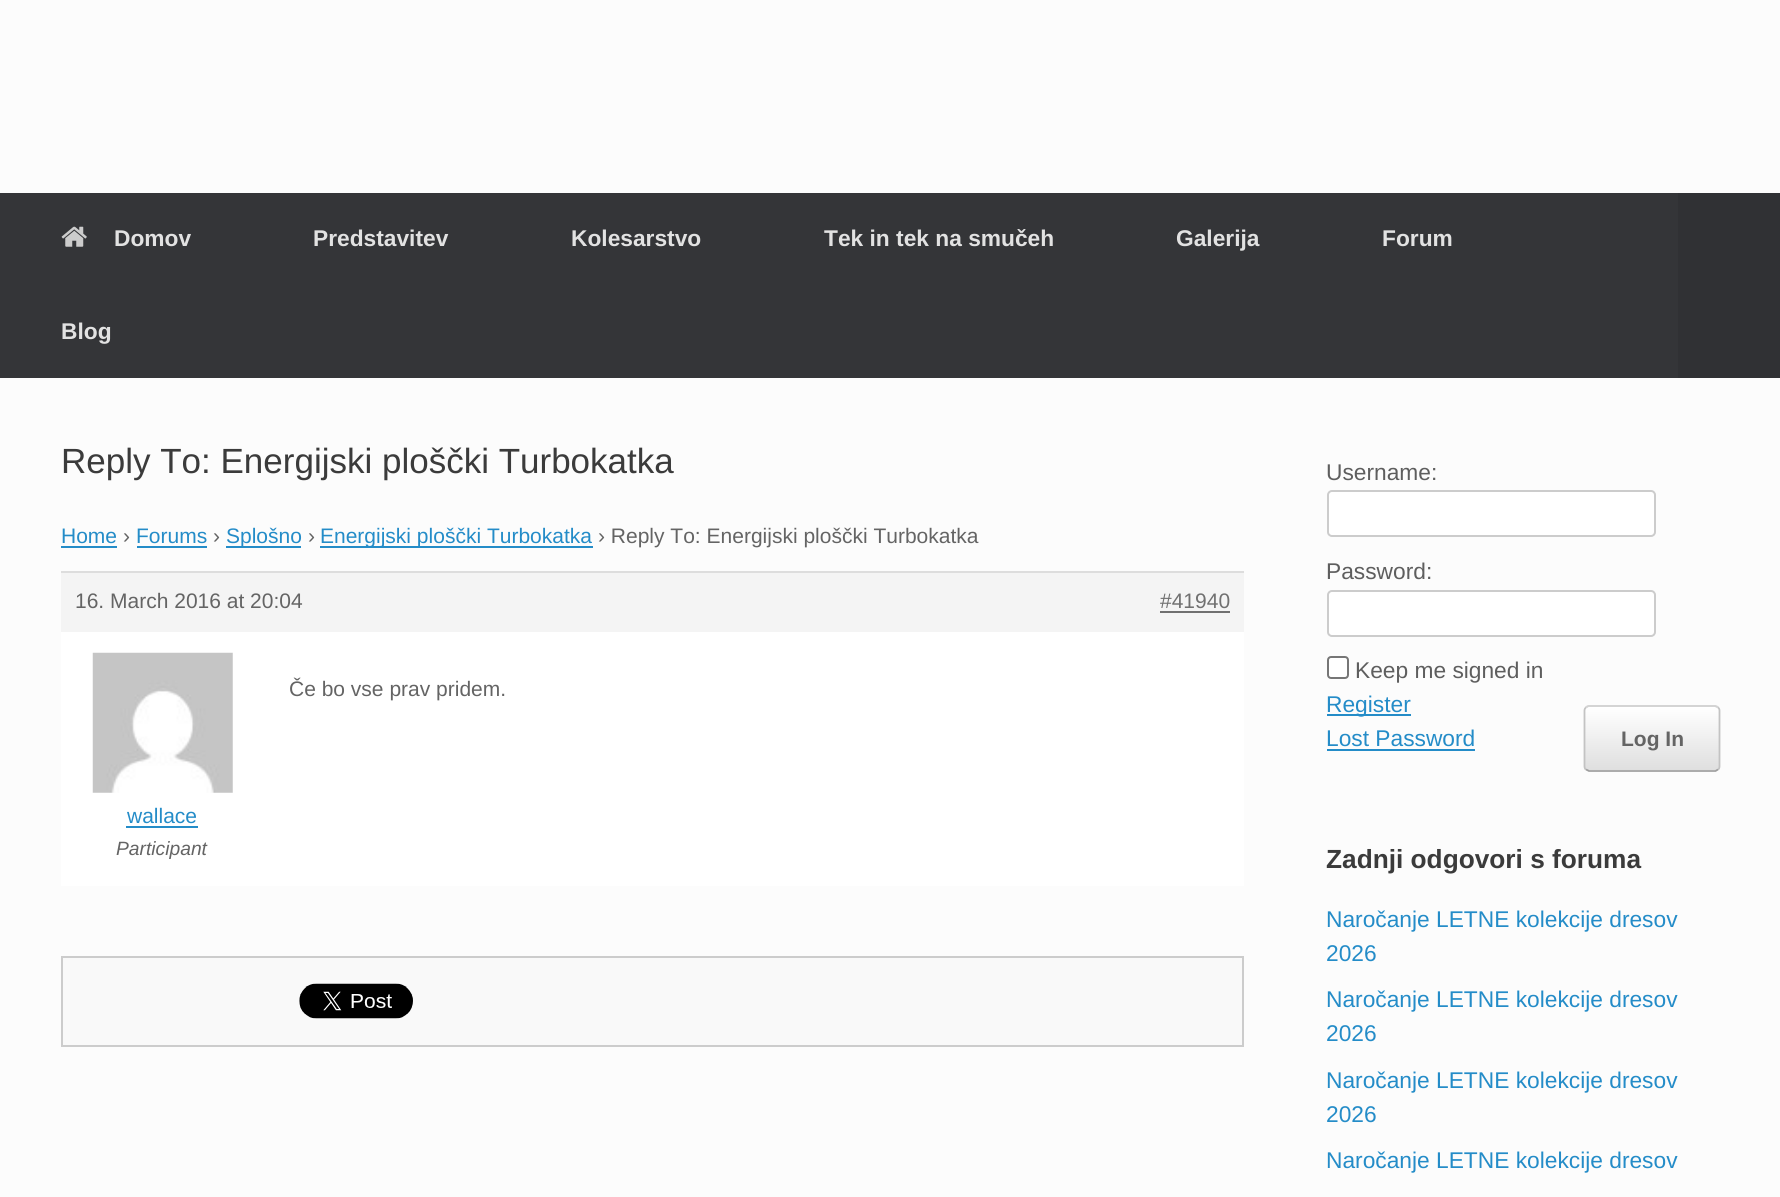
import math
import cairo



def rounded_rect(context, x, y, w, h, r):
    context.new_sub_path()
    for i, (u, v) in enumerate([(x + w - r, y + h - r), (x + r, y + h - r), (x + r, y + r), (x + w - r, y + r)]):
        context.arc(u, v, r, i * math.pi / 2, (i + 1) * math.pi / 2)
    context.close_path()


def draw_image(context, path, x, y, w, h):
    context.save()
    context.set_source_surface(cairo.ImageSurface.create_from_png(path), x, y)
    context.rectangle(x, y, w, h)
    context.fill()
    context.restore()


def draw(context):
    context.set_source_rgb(252 / 255, 252 / 255, 252 / 255)
    context.paint()
    context.set_source_rgb(52 / 255, 53 / 255, 56 / 255)
    context.rectangle(0, 193, 1678, 185)
    context.fill()
    draw_image(context, "images/1.png", 61, 226, 26, 21)
    context.set_source_rgb(48 / 255, 49 / 255, 52 / 255)
    context.rectangle(1678, 193, 102, 185)
    context.fill()
    context.set_source_rgb(36 / 255, 140 / 255, 200 / 255)
    context.rectangle(61, 546, 56, 2)
    context.fill()
    context.rectangle(137, 546, 70, 2)
    context.fill()
    context.rectangle(226, 546, 75, 2)
    context.fill()
    context.rectangle(320, 546, 273, 2)
    context.fill()
    context.set_source_rgb(244 / 255, 244 / 255, 244 / 255)
    context.rectangle(61, 573, 1183, 59)
    context.fill()
    context.set_source_rgb(221 / 255, 221 / 255, 221 / 255)
    context.rectangle(61, 571, 1183, 2)
    context.fill()
    context.set_source_rgb(112 / 255, 112 / 255, 112 / 255)
    context.rectangle(1160, 611, 70, 2)
    context.fill()
    context.set_source_rgb(1, 1, 1)
    context.rectangle(61, 632, 1183, 254)
    context.fill()
    draw_image(context, "images/2.png", 92, 652, 141, 141)
    context.set_source_rgb(36 / 255, 140 / 255, 200 / 255)
    context.rectangle(126, 826, 72, 2)
    context.fill()
    context.set_source_rgb(249 / 255, 249 / 255, 249 / 255)
    context.rectangle(62, 957, 1181, 89)
    context.fill_preserve()
    context.set_source_rgb(204 / 255, 204 / 255, 204 / 255)
    context.stroke()
    draw_image(context, "images/3.png", 299, 983, 114, 36)
    context.set_source_rgb(1, 1, 1)
    rounded_rect(context, 1328, 491, 327, 45, 4)
    context.fill_preserve()
    context.set_source_rgb(204 / 255, 204 / 255, 204 / 255)
    context.stroke()
    context.set_source_rgb(1, 1, 1)
    rounded_rect(context, 1328, 591, 327, 45, 4)
    context.fill_preserve()
    context.set_source_rgb(204 / 255, 204 / 255, 204 / 255)
    context.stroke()
    context.set_source_rgb(1, 1, 1)
    rounded_rect(context, 1328, 657, 20, 21, 3)
    context.fill_preserve()
    context.set_source_rgb(118 / 255, 118 / 255, 118 / 255)
    context.stroke()
    context.set_source_rgb(36 / 255, 140 / 255, 200 / 255)
    context.rectangle(1327, 714, 84, 2)
    context.fill()
    context.rectangle(1327, 749, 148, 2)
    context.fill()
    context.save()
    rounded_rect(context, 1584, 705, 136, 67, 5)
    context.clip()
    gradient = cairo.LinearGradient(1586, 707, 1586, 644)
    gradient.add_color_stop_rgba(0, 223 / 255, 223 / 255, 223 / 255, 1)
    gradient.add_color_stop_rgba(1, 1, 1, 1, 1)
    context.set_source(gradient)
    context.rectangle(1584, 705, 136, 2)
    context.fill()
    gradient = cairo.LinearGradient(1586, 770, 1586, 707)
    gradient.add_color_stop_rgba(0, 223 / 255, 223 / 255, 223 / 255, 1)
    gradient.add_color_stop_rgba(1, 1, 1, 1, 1)
    context.set_source(gradient)
    context.rectangle(1584, 707, 136, 63)
    context.fill()
    gradient = cairo.LinearGradient(1586, 833, 1586, 770)
    gradient.add_color_stop_rgba(0, 223 / 255, 223 / 255, 223 / 255, 1)
    gradient.add_color_stop_rgba(1, 1, 1, 1, 1)
    context.set_source(gradient)
    context.rectangle(1584, 770, 136, 2)
    context.fill()
    context.restore()
    context.new_path()
    context.move_to(1586, 707.5)
    context.line_to(1588.5, 706)
    context.line_to(1694, 706)
    context.line_to(1715, 706)
    context.line_to(1718, 707.5)
    context.set_source_rgb(210 / 255, 210 / 255, 210 / 255)
    context.set_line_width(1.8)
    context.stroke()
    context.new_path()
    context.move_to(1718, 707.5)
    context.curve_to(1719, 708, 1719.5, 709.5, 1719.5, 710.5)
    context.line_to(1719.5, 766.5)
    context.curve_to(1719.5, 767.5, 1719, 769, 1718, 769.5)
    context.set_source_rgb(195 / 255, 195 / 255, 195 / 255)
    context.stroke()
    context.new_path()
    context.move_to(1718, 769.5)
    context.line_to(1715.5, 771)
    context.line_to(1610, 771)
    context.line_to(1589, 771)
    context.line_to(1586, 769.5)
    context.set_source_rgb(159 / 255, 159 / 255, 159 / 255)
    context.stroke()
    context.new_path()
    context.move_to(1586, 769.5)
    context.curve_to(1585, 769, 1584.5, 767.5, 1584.5, 766.5)
    context.line_to(1584.5, 710.5)
    context.curve_to(1584.5, 709.5, 1585, 708, 1586, 707.5)
    context.set_source_rgb(195 / 255, 195 / 255, 195 / 255)
    context.stroke()
    context.select_font_face("Liberation Sans", cairo.FontSlant.NORMAL, cairo.FontWeight.BOLD)
    context.set_font_size(22.75)
    context.set_source_rgb(226 / 255, 226 / 255, 226 / 255)
    context.move_to(114, 246)
    context.show_text("Domov")
    context.move_to(313, 246)
    context.show_text("Predstavitev")
    context.move_to(571, 246)
    context.show_text("Kolesarstvo")
    context.move_to(824, 246)
    context.show_text("Tek in tek na smučeh")
    context.move_to(1176, 246)
    context.show_text("Galerija")
    context.move_to(1382, 246)
    context.show_text("Forum")
    context.move_to(61, 339)
    context.show_text("Blog")
    context.select_font_face("Liberation Sans")
    context.set_font_size(35)
    context.set_source_rgb(59 / 255, 59 / 255, 59 / 255)
    context.move_to(61, 473)
    context.show_text("Reply To: Energijski ploščki Turbokatka")
    context.set_font_size(21)
    context.set_source_rgb(36 / 255, 140 / 255, 200 / 255)
    context.move_to(61, 543)
    context.show_text("Home")
    context.set_source_rgb(100 / 255, 100 / 255, 100 / 255)
    context.move_to(123, 543)
    context.show_text("›")
    context.set_source_rgb(36 / 255, 140 / 255, 200 / 255)
    context.move_to(136, 543)
    context.show_text("Forums")
    context.set_source_rgb(100 / 255, 100 / 255, 100 / 255)
    context.move_to(213, 543)
    context.show_text("›")
    context.set_source_rgb(36 / 255, 140 / 255, 200 / 255)
    context.move_to(226, 543)
    context.show_text("Splošno")
    context.set_source_rgb(100 / 255, 100 / 255, 100 / 255)
    context.move_to(308, 543)
    context.show_text("›")
    context.set_source_rgb(36 / 255, 140 / 255, 200 / 255)
    context.move_to(320, 543)
    context.show_text("Energijski ploščki Turbokatka")
    context.set_source_rgb(100 / 255, 100 / 255, 100 / 255)
    context.move_to(598, 543)
    context.show_text("› Reply To: Energijski ploščki Turbokatka")
    context.move_to(75, 608)
    context.show_text("16. March 2016 at 20:04")
    context.set_source_rgb(112 / 255, 112 / 255, 112 / 255)
    context.move_to(1160, 608)
    context.show_text("#41940")
    context.set_source_rgb(100 / 255, 100 / 255, 100 / 255)
    context.move_to(289, 696)
    context.show_text("Če bo vse prav pridem.")
    context.set_source_rgb(36 / 255, 140 / 255, 200 / 255)
    context.move_to(127, 823)
    context.show_text("wallace")
    context.select_font_face("Liberation Sans", cairo.FontSlant.ITALIC)
    context.set_font_size(19.25)
    context.set_source_rgb(100 / 255, 100 / 255, 100 / 255)
    context.move_to(116, 855)
    context.show_text("Participant")
    context.select_font_face("Liberation Sans")
    context.set_font_size(22.75)
    context.set_source_rgb(94 / 255, 94 / 255, 94 / 255)
    context.move_to(1326, 480)
    context.show_text("Username:")
    context.move_to(1326, 579)
    context.show_text("Password:")
    context.move_to(1355, 678)
    context.show_text("Keep me signed in")
    context.set_source_rgb(36 / 255, 140 / 255, 200 / 255)
    context.move_to(1326, 712)
    context.show_text("Register")
    context.move_to(1326, 746)
    context.show_text("Lost Password")
    context.select_font_face("Liberation Sans", cairo.FontSlant.NORMAL, cairo.FontWeight.BOLD)
    context.set_font_size(21)
    context.set_source_rgb(100 / 255, 100 / 255, 100 / 255)
    context.move_to(1621, 746)
    context.show_text("Log In")
    context.set_font_size(26.25)
    context.set_source_rgb(59 / 255, 59 / 255, 59 / 255)
    context.move_to(1326, 868)
    context.show_text("Zadnji odgovori s foruma")
    context.select_font_face("Liberation Sans")
    context.set_font_size(22.75)
    context.set_source_rgb(36 / 255, 140 / 255, 200 / 255)
    context.move_to(1326, 927)
    context.show_text("Naročanje LETNE kolekcije dresov")
    context.move_to(1326, 961)
    context.show_text("2026")
    context.move_to(1326, 1007)
    context.show_text("Naročanje LETNE kolekcije dresov")
    context.move_to(1326, 1041)
    context.show_text("2026")
    context.move_to(1326, 1088)
    context.show_text("Naročanje LETNE kolekcije dresov")
    context.move_to(1326, 1122)
    context.show_text("2026")
    context.move_to(1326, 1168)
    context.show_text("Naročanje LETNE kolekcije dresov")


surface = cairo.ImageSurface(cairo.Format.RGB24, 1780, 1197)
context = cairo.Context(surface)
options = cairo.FontOptions()
options.set_hint_metrics(cairo.HintMetrics.OFF)
options.set_hint_style(cairo.HintStyle.NONE)
context.set_font_options(options)
context.set_miter_limit(4)
draw(context)
surface.write_to_png("out.png")
